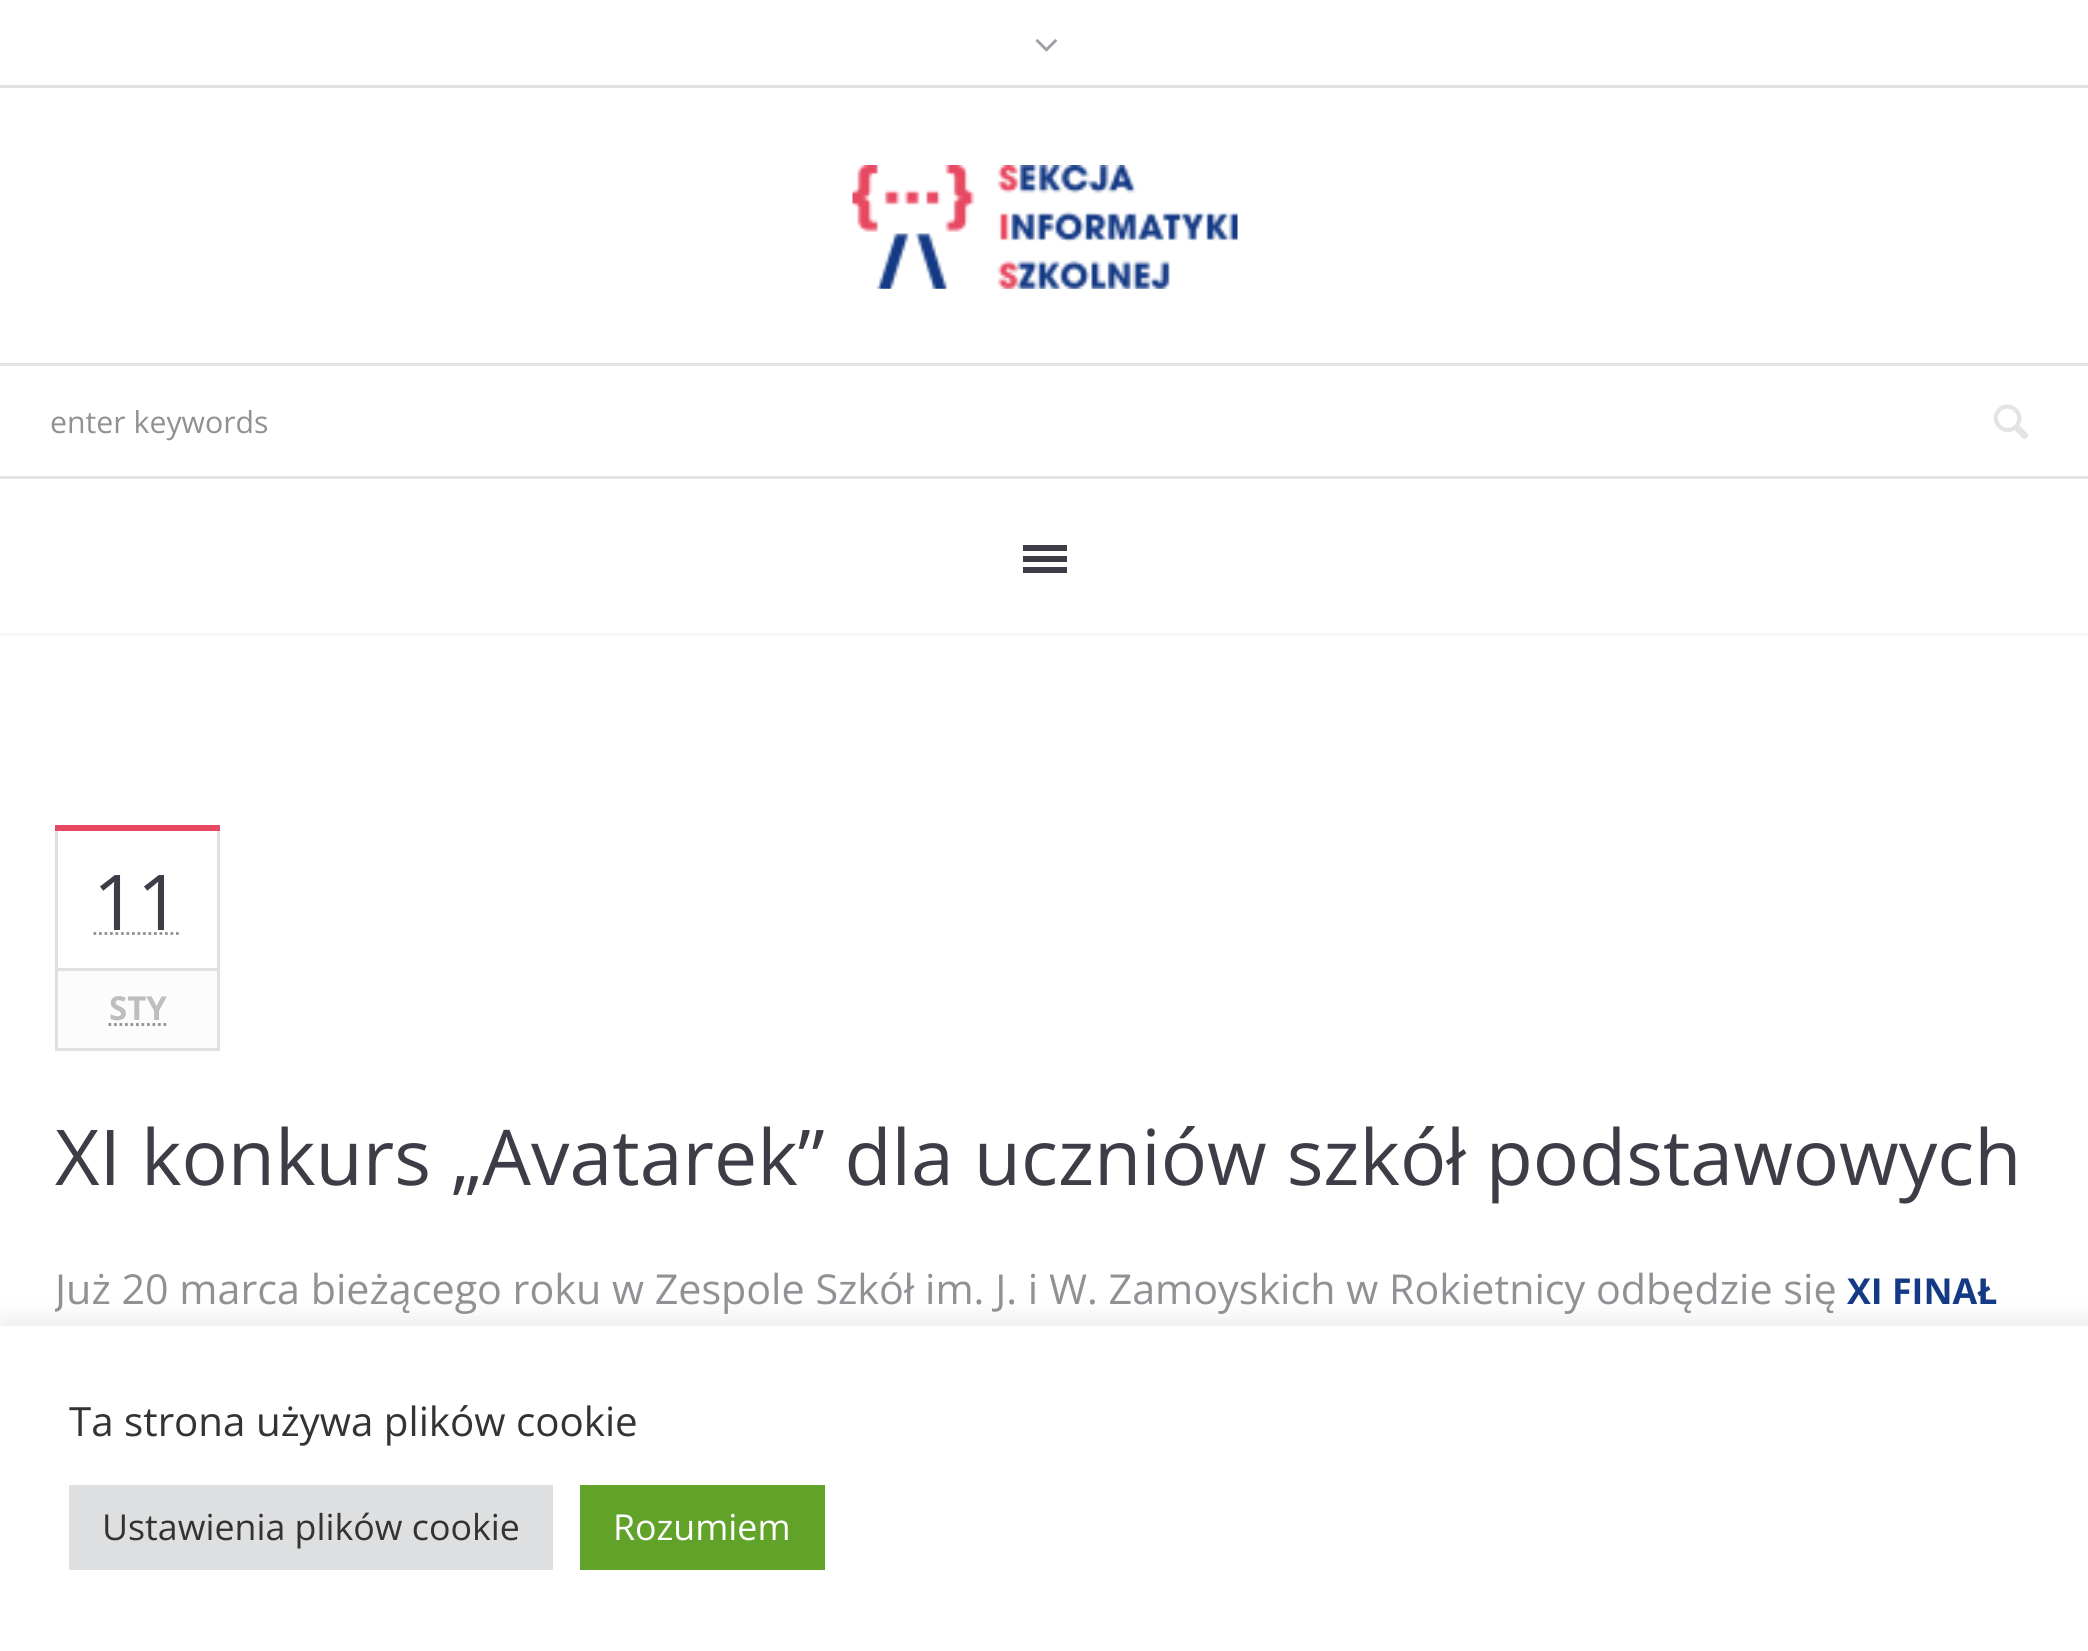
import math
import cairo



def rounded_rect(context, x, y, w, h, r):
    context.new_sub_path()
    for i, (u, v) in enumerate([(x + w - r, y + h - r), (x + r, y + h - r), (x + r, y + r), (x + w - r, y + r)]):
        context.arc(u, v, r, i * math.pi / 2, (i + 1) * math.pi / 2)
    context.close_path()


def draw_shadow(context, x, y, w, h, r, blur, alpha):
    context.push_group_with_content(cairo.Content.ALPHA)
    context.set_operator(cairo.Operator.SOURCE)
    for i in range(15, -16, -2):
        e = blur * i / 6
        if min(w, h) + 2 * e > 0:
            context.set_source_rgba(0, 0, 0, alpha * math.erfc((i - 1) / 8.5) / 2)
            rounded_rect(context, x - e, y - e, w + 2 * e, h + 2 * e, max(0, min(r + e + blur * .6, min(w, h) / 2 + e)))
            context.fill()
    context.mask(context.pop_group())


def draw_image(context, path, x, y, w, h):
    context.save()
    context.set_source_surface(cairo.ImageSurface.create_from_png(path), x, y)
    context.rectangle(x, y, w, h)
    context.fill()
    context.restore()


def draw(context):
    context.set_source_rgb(1, 1, 1)
    context.paint()
    context.save()
    context.set_fill_rule(cairo.FillRule.EVEN_ODD)
    context.new_path()
    context.move_to(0, 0)
    context.line_to(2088, 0)
    context.line_to(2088, 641)
    context.line_to(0, 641)
    context.close_path()
    context.move_to(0, 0)
    context.line_to(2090, 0)
    context.line_to(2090, 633)
    context.line_to(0, 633)
    context.close_path()
    context.clip()
    context.set_source_rgb(0, 0, 0)
    draw_shadow(context, 0, 3, 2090, 632, 0, 1.5, 0.05)
    context.restore()
    context.set_source_rgb(224 / 255, 224 / 255, 224 / 255)
    context.rectangle(0, 85, 2088, 3)
    context.fill()
    draw_image(context, "images/1.png", 1035, 39, 22, 13)
    context.set_source_rgba(1, 1, 1, 0.9)
    context.rectangle(0, 632, 2088, 1)
    context.fill()
    draw_image(context, "images/2.png", 852, 165, 386, 124)
    context.set_source_rgb(228 / 255, 228 / 255, 228 / 255)
    context.rectangle(0, 363, 2088, 3)
    context.fill()
    context.rectangle(0, 476, 2088, 3)
    context.fill()
    draw_image(context, "images/3.png", 1993, 404, 36, 36)
    context.set_source_rgb(61 / 255, 61 / 255, 71 / 255)
    context.rectangle(1023, 545, 44, 6)
    context.fill()
    context.rectangle(1023, 567, 44, 6)
    context.fill()
    context.rectangle(1023, 556, 44, 6)
    context.fill()
    context.set_source_rgb(232 / 255, 73 / 255, 98 / 255)
    context.rectangle(55, 825, 165, 6)
    context.fill()
    context.set_source_rgb(224 / 255, 224 / 255, 224 / 255)
    context.rectangle(217, 831, 3, 220)
    context.fill()
    context.rectangle(55, 1048, 165, 3)
    context.fill()
    context.rectangle(55, 831, 3, 220)
    context.fill()
    context.new_path()
    context.move_to(93.5, 933.5)
    context.line_to(181.5, 933.5)
    context.set_source_rgb(144 / 255, 145 / 255, 149 / 255)
    context.set_line_width(2.8)
    context.set_dash([2.75, 2.75])
    context.stroke()
    context.set_source_rgb(252 / 255, 252 / 255, 252 / 255)
    context.rectangle(58, 971, 159, 77)
    context.fill()
    context.set_source_rgb(224 / 255, 224 / 255, 224 / 255)
    context.rectangle(58, 968, 159, 3)
    context.fill()
    context.new_path()
    context.move_to(108.5, 1024.5)
    context.line_to(166.5, 1024.5)
    context.set_source_rgb(144 / 255, 145 / 255, 149 / 255)
    context.stroke()
    context.set_source_rgb(172 / 255, 171 / 255, 171 / 255)
    draw_shadow(context, 0, 1323, 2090, 327, 0, 14, 0.3)
    context.set_source_rgb(1, 1, 1)
    context.rectangle(0, 1326, 2088, 325)
    context.fill()
    context.set_source_rgb(222 / 255, 223 / 255, 224 / 255)
    context.rectangle(69, 1485, 484, 85)
    context.fill()
    context.set_source_rgb(97 / 255, 162 / 255, 41 / 255)
    context.rectangle(580, 1485, 245, 85)
    context.fill()
    context.select_font_face("Open Sans")
    context.set_font_size(30.25)
    context.set_source_rgb(144 / 255, 145 / 255, 149 / 255)
    context.move_to(50, 433)
    context.show_text("enter keywords")
    context.set_font_size(77)
    context.set_source_rgb(61 / 255, 61 / 255, 71 / 255)
    context.move_to(93, 930)
    context.show_text("11")
    context.select_font_face("Open Sans", cairo.FontSlant.NORMAL, cairo.FontWeight.BOLD)
    context.set_font_size(33)
    context.set_source_rgb(188 / 255, 190 / 255, 193 / 255)
    context.move_to(109, 1020)
    context.show_text("STY")
    context.select_font_face("Open Sans")
    context.set_font_size(77)
    context.set_source_rgb(61 / 255, 61 / 255, 71 / 255)
    context.move_to(55, 1185)
    context.show_text("XI konkurs „Avatarek” dla uczniów szkół podstawowych")
    context.save()
    context.rectangle(55, 1106, 1980, 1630)
    context.clip()
    context.set_font_size(41.25)
    context.set_source_rgb(144 / 255, 145 / 255, 149 / 255)
    context.move_to(55, 1304)
    context.show_text("Już 20 marca bieżącego roku w Zespole Szkół im. J. i W. Zamoyskich w Rokietnicy odbędzie się")
    context.restore()
    context.select_font_face("Open Sans", cairo.FontSlant.NORMAL, cairo.FontWeight.BOLD)
    context.set_font_size(35.75)
    context.set_source_rgb(21 / 255, 58 / 255, 133 / 255)
    context.move_to(1847, 1304)
    context.show_text("XI FINAŁ")
    context.select_font_face("Open Sans")
    context.set_font_size(40.3)
    context.set_source_rgb(51 / 255, 51 / 255, 51 / 255)
    context.move_to(69, 1436)
    context.show_text("Ta strona używa plików cookie")
    context.set_font_size(35.75)
    context.move_to(102, 1540)
    context.show_text("Ustawienia plików cookie")
    context.set_source_rgb(1, 1, 1)
    context.move_to(613, 1540)
    context.show_text("Rozumiem")


surface = cairo.ImageSurface(cairo.Format.RGB24, 2088, 1651)
context = cairo.Context(surface)
options = cairo.FontOptions()
options.set_hint_metrics(cairo.HintMetrics.OFF)
options.set_hint_style(cairo.HintStyle.NONE)
context.set_font_options(options)
context.set_miter_limit(4)
draw(context)
surface.write_to_png("out.png")
